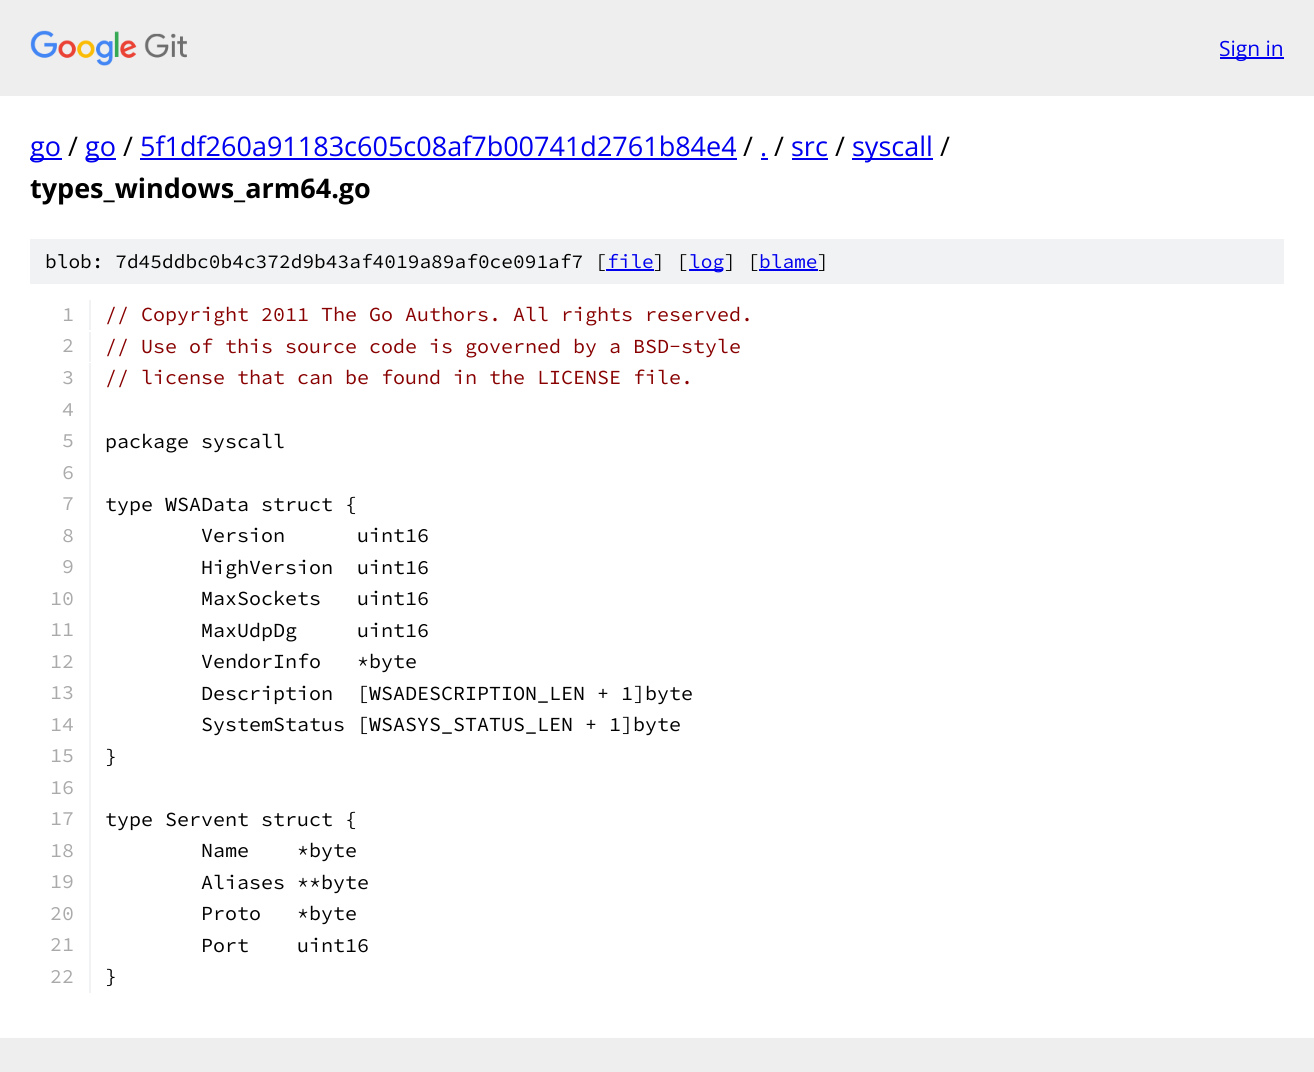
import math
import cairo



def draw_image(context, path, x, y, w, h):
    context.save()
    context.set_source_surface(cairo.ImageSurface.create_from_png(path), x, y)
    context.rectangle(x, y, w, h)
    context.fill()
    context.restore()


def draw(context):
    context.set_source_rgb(1, 1, 1)
    context.paint()
    context.set_source_rgb(238 / 255, 238 / 255, 238 / 255)
    context.rectangle(0, 0, 1314, 96)
    context.fill()
    draw_image(context, "images/1.png", 30, 30, 157, 36)
    context.set_source_rgb(0, 0, 238 / 255)
    context.rectangle(1220, 57, 64, 2)
    context.fill()
    context.rectangle(30, 158, 32, 2)
    context.fill()
    context.rectangle(86, 158, 30, 2)
    context.fill()
    context.rectangle(140, 158, 597, 2)
    context.fill()
    context.rectangle(761, 158, 7, 2)
    context.fill()
    context.rectangle(792, 158, 36, 2)
    context.fill()
    context.rectangle(852, 158, 81, 2)
    context.fill()
    context.set_source_rgb(241 / 255, 242 / 255, 243 / 255)
    context.rectangle(30, 239, 1254, 45)
    context.fill()
    context.set_source_rgb(0, 0, 238 / 255)
    context.rectangle(606, 269, 48, 2)
    context.fill()
    context.rectangle(689, 269, 34, 2)
    context.fill()
    context.rectangle(759, 269, 59, 2)
    context.fill()
    context.set_source_rgb(241 / 255, 242 / 255, 243 / 255)
    context.rectangle(89, 300, 2, 30)
    context.fill()
    context.rectangle(89, 332, 2, 30)
    context.fill()
    context.rectangle(89, 363, 2, 630)
    context.fill()
    context.set_source_rgb(238 / 255, 238 / 255, 238 / 255)
    context.rectangle(0, 1038, 1314, 34)
    context.fill()
    context.select_font_face("Open Sans")
    context.set_font_size(21)
    context.set_source_rgb(0, 0, 238 / 255)
    context.move_to(1219, 56)
    context.show_text("Sign in")
    context.set_font_size(27)
    context.move_to(30, 156)
    context.show_text("go")
    context.set_source_rgb(0, 0, 0)
    context.move_to(68, 156)
    context.show_text("/")
    context.set_source_rgb(0, 0, 238 / 255)
    context.move_to(85, 156)
    context.show_text("go")
    context.set_source_rgb(0, 0, 0)
    context.move_to(123, 156)
    context.show_text("/")
    context.set_source_rgb(0, 0, 238 / 255)
    context.move_to(140, 156)
    context.show_text("5f1df260a91183c605c08af7b00741d2761b84e4")
    context.set_source_rgb(0, 0, 0)
    context.move_to(743, 156)
    context.show_text("/")
    context.set_source_rgb(0, 0, 238 / 255)
    context.move_to(760, 156)
    context.show_text(".")
    context.set_source_rgb(0, 0, 0)
    context.move_to(774, 156)
    context.show_text("/")
    context.set_source_rgb(0, 0, 238 / 255)
    context.move_to(791, 156)
    context.show_text("src")
    context.set_source_rgb(0, 0, 0)
    context.move_to(835, 156)
    context.show_text("/")
    context.set_source_rgb(0, 0, 238 / 255)
    context.move_to(852, 156)
    context.show_text("syscall")
    context.set_source_rgb(0, 0, 0)
    context.move_to(940, 156)
    context.show_text("/")
    context.select_font_face("Open Sans", cairo.FontSlant.NORMAL, cairo.FontWeight.BOLD)
    context.move_to(30, 198)
    context.show_text("types_windows_arm64.go")
    context.select_font_face("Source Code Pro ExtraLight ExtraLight")
    context.set_font_size(19.5)
    context.move_to(45, 268)
    context.show_text("blob: 7d45ddbc0b4c372d9b43af4019a89af0ce091af7 [")
    context.set_source_rgb(0, 0, 238 / 255)
    context.move_to(607, 268)
    context.show_text("file")
    context.set_source_rgb(0, 0, 0)
    context.move_to(653, 268)
    context.show_text("] [")
    context.set_source_rgb(0, 0, 238 / 255)
    context.move_to(689, 268)
    context.show_text("log")
    context.set_source_rgb(0, 0, 0)
    context.move_to(724, 268)
    context.show_text("] [")
    context.set_source_rgb(0, 0, 238 / 255)
    context.move_to(759, 268)
    context.show_text("blame")
    context.set_source_rgb(0, 0, 0)
    context.move_to(817, 268)
    context.show_text("]")
    context.set_font_size(20)
    context.set_source_rgb(170 / 255, 170 / 255, 170 / 255)
    context.move_to(62, 321)
    context.show_text("1")
    context.set_source_rgb(136 / 255, 0, 0)
    context.move_to(105, 321)
    context.show_text("// Copyright 2011 The Go Authors. All rights reserved.")
    context.set_source_rgb(170 / 255, 170 / 255, 170 / 255)
    context.move_to(62, 352)
    context.show_text("2")
    context.set_source_rgb(136 / 255, 0, 0)
    context.move_to(105, 353)
    context.show_text("// Use of this source code is governed by a BSD-style")
    context.set_source_rgb(170 / 255, 170 / 255, 170 / 255)
    context.move_to(62, 384)
    context.show_text("3")
    context.set_source_rgb(136 / 255, 0, 0)
    context.move_to(105, 384)
    context.show_text("// license that can be found in the LICENSE file.")
    context.set_source_rgb(170 / 255, 170 / 255, 170 / 255)
    context.move_to(62, 416)
    context.show_text("4")
    context.move_to(62, 447)
    context.show_text("5")
    context.set_source_rgb(0, 0, 0)
    context.move_to(105, 448)
    context.show_text("package syscall")
    context.set_source_rgb(170 / 255, 170 / 255, 170 / 255)
    context.move_to(62, 479)
    context.show_text("6")
    context.move_to(62, 510)
    context.show_text("7")
    context.set_source_rgb(0, 0, 0)
    context.move_to(105, 511)
    context.show_text("type WSAData struct {")
    context.set_source_rgb(170 / 255, 170 / 255, 170 / 255)
    context.move_to(62, 542)
    context.show_text("8")
    context.set_source_rgb(0, 0, 0)
    context.move_to(201, 542)
    context.show_text("Version      uint16")
    context.set_source_rgb(170 / 255, 170 / 255, 170 / 255)
    context.move_to(62, 573)
    context.show_text("9")
    context.set_source_rgb(0, 0, 0)
    context.move_to(201, 574)
    context.show_text("HighVersion  uint16")
    context.set_source_rgb(170 / 255, 170 / 255, 170 / 255)
    context.move_to(50, 605)
    context.show_text("10")
    context.set_source_rgb(0, 0, 0)
    context.move_to(201, 605)
    context.show_text("MaxSockets   uint16")
    context.set_source_rgb(170 / 255, 170 / 255, 170 / 255)
    context.move_to(50, 636)
    context.show_text("11")
    context.set_source_rgb(0, 0, 0)
    context.move_to(201, 637)
    context.show_text("MaxUdpDg     uint16")
    context.set_source_rgb(170 / 255, 170 / 255, 170 / 255)
    context.move_to(50, 668)
    context.show_text("12")
    context.set_source_rgb(0, 0, 0)
    context.move_to(201, 668)
    context.show_text("VendorInfo   *byte")
    context.set_source_rgb(170 / 255, 170 / 255, 170 / 255)
    context.move_to(50, 699)
    context.show_text("13")
    context.set_source_rgb(0, 0, 0)
    context.move_to(201, 700)
    context.show_text("Description  [WSADESCRIPTION_LEN + 1]byte")
    context.set_source_rgb(170 / 255, 170 / 255, 170 / 255)
    context.move_to(50, 731)
    context.show_text("14")
    context.set_source_rgb(0, 0, 0)
    context.move_to(201, 731)
    context.show_text("SystemStatus [WSASYS_STATUS_LEN + 1]byte")
    context.set_source_rgb(170 / 255, 170 / 255, 170 / 255)
    context.move_to(50, 762)
    context.show_text("15")
    context.set_source_rgb(0, 0, 0)
    context.move_to(105, 763)
    context.show_text("}")
    context.set_source_rgb(170 / 255, 170 / 255, 170 / 255)
    context.move_to(50, 794)
    context.show_text("16")
    context.move_to(50, 825)
    context.show_text("17")
    context.set_source_rgb(0, 0, 0)
    context.move_to(105, 826)
    context.show_text("type Servent struct {")
    context.set_source_rgb(170 / 255, 170 / 255, 170 / 255)
    context.move_to(50, 857)
    context.show_text("18")
    context.set_source_rgb(0, 0, 0)
    context.move_to(201, 857)
    context.show_text("Name    *byte")
    context.set_source_rgb(170 / 255, 170 / 255, 170 / 255)
    context.move_to(50, 888)
    context.show_text("19")
    context.set_source_rgb(0, 0, 0)
    context.move_to(201, 889)
    context.show_text("Aliases **byte")
    context.set_source_rgb(170 / 255, 170 / 255, 170 / 255)
    context.move_to(50, 920)
    context.show_text("20")
    context.set_source_rgb(0, 0, 0)
    context.move_to(201, 920)
    context.show_text("Proto   *byte")
    context.set_source_rgb(170 / 255, 170 / 255, 170 / 255)
    context.move_to(50, 951)
    context.show_text("21")
    context.set_source_rgb(0, 0, 0)
    context.move_to(201, 952)
    context.show_text("Port    uint16")
    context.set_source_rgb(170 / 255, 170 / 255, 170 / 255)
    context.move_to(50, 983)
    context.show_text("22")
    context.set_source_rgb(0, 0, 0)
    context.move_to(105, 983)
    context.show_text("}")


surface = cairo.ImageSurface(cairo.Format.RGB24, 1314, 1072)
context = cairo.Context(surface)
options = cairo.FontOptions()
options.set_hint_metrics(cairo.HintMetrics.OFF)
options.set_hint_style(cairo.HintStyle.NONE)
context.set_font_options(options)
context.set_miter_limit(4)
draw(context)
surface.write_to_png("out.png")
